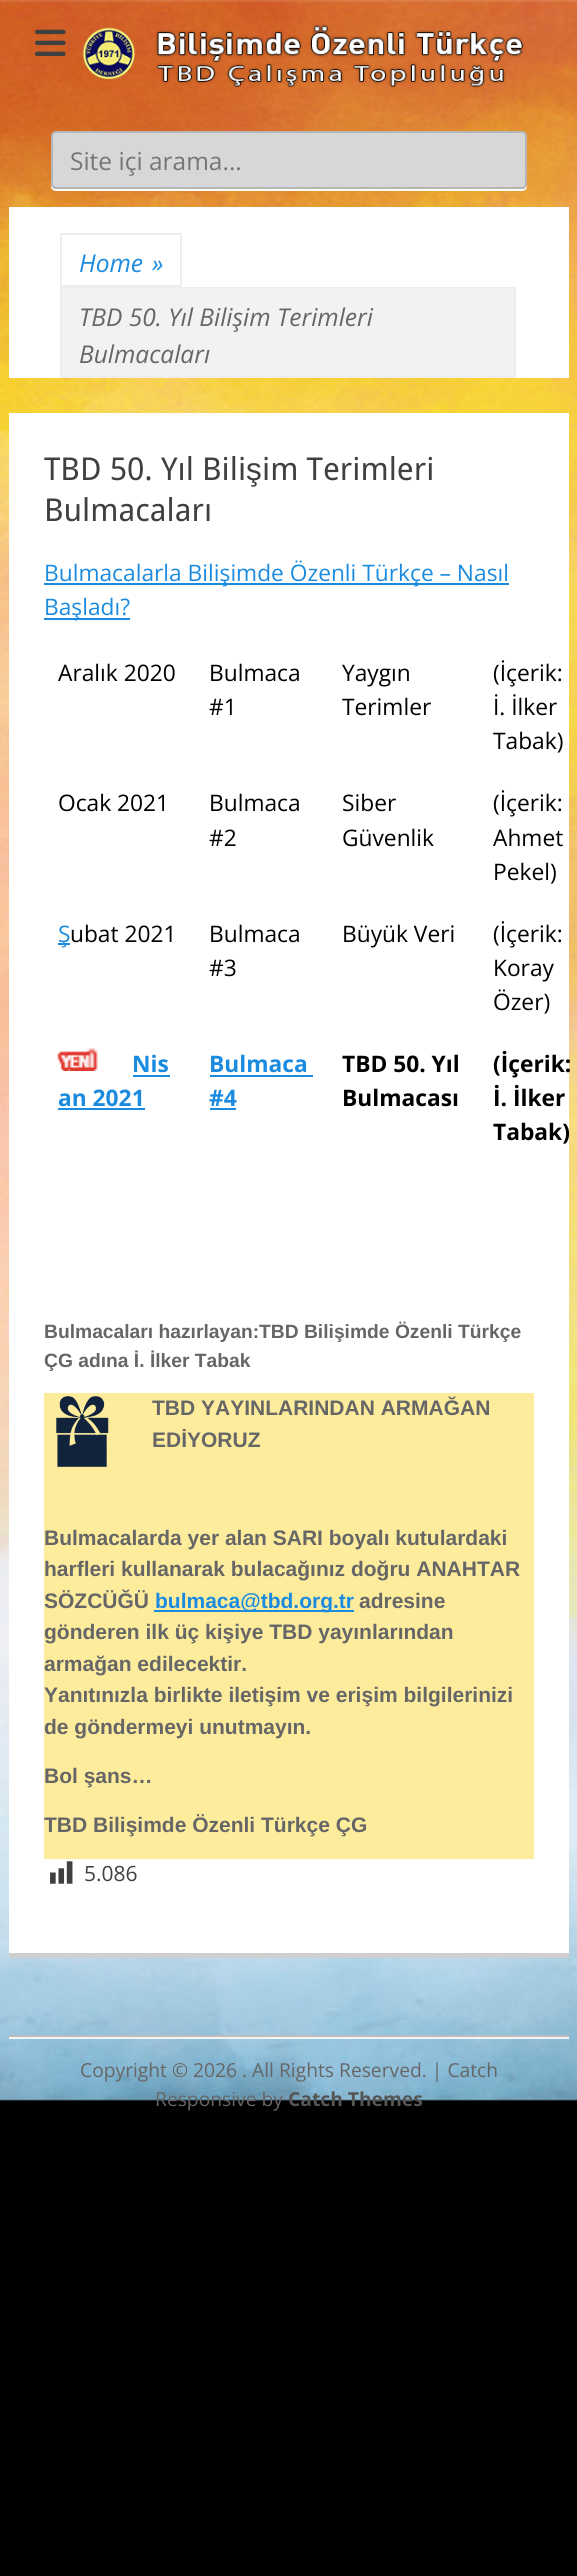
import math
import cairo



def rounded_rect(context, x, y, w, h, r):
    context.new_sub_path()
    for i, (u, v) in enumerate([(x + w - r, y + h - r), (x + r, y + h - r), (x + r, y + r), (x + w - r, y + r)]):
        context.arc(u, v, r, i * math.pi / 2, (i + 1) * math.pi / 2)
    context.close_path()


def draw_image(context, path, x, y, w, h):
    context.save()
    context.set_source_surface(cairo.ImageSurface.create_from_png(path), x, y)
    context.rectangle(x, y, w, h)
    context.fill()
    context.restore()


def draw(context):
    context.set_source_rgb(0, 0, 0)
    context.paint()
    draw_image(context, "images/1.png", 0, 0, 577, 2101)
    draw_image(context, "images/2.png", 35, 29, 31, 27)
    draw_image(context, "images/3.png", 82, 24, 443, 65)
    context.set_source_rgb(1, 1, 1)
    context.new_path()
    context.move_to(51, 185)
    context.line_to(51, 186)
    context.curve_to(51, 189, 53, 191, 56, 191)
    context.line_to(522, 191)
    context.curve_to(525, 191, 527, 189, 527, 186)
    context.line_to(527, 136)
    context.line_to(527, 184)
    context.curve_to(527, 187, 524, 189, 522, 189)
    context.line_to(56, 189)
    context.curve_to(54, 189, 52, 187, 51, 185)
    context.close_path()
    context.fill()
    context.set_source_rgb(215 / 255, 215 / 255, 215 / 255)
    rounded_rect(context, 52, 132, 474, 56, 4)
    context.fill_preserve()
    context.set_source_rgb(182 / 255, 182 / 255, 182 / 255)
    context.stroke()
    context.set_source_rgb(1, 1, 1)
    context.rectangle(9, 207, 560, 171)
    context.fill()
    context.rectangle(61, 234, 120, 52)
    context.set_source_rgb(238 / 255, 238 / 255, 238 / 255)
    context.stroke()
    context.set_source_rgb(242 / 255, 242 / 255, 242 / 255)
    context.rectangle(61, 288, 454, 89)
    context.fill_preserve()
    context.set_source_rgb(238 / 255, 238 / 255, 238 / 255)
    context.stroke()
    context.set_source_rgb(1, 1, 1)
    context.rectangle(9, 413, 560, 1540)
    context.fill()
    context.set_source_rgb(27 / 255, 139 / 255, 224 / 255)
    context.rectangle(44, 583, 465, 2)
    context.fill()
    context.rectangle(44, 618, 86, 2)
    context.fill()
    context.rectangle(58, 943, 12, 2)
    context.fill()
    draw_image(context, "images/4.png", 57, 1048, 41, 23)
    context.rectangle(133, 1075, 37, 2)
    context.fill()
    context.rectangle(58, 1108, 87, 2)
    context.fill()
    context.rectangle(210, 1075, 103, 2)
    context.fill()
    context.rectangle(210, 1108, 26, 2)
    context.fill()
    context.set_source_rgb(254 / 255, 236 / 255, 157 / 255)
    context.rectangle(44, 1393, 490, 466)
    context.fill()
    draw_image(context, "images/5.png", 56, 1396, 53, 71)
    context.set_source_rgb(27 / 255, 139 / 255, 224 / 255)
    context.rectangle(154, 1610, 200, 2)
    context.fill()
    draw_image(context, "images/6.png", 50, 1861, 23, 23)
    context.set_source_rgb(207 / 255, 207 / 255, 207 / 255)
    context.rectangle(9, 1953, 560, 5)
    context.fill()
    context.set_source_rgb(188 / 255, 188 / 255, 188 / 255)
    context.rectangle(9, 2035, 560, 2)
    context.fill()
    context.set_source_rgb(244 / 255, 244 / 255, 244 / 255)
    context.rectangle(9, 2037, 560, 2)
    context.fill()
    context.select_font_face("Open Sans")
    context.set_font_size(24.5)
    context.set_source_rgb(117 / 255, 117 / 255, 117 / 255)
    context.move_to(70, 170)
    context.show_text("Site içi arama...")
    context.select_font_face("Open Sans", cairo.FontSlant.ITALIC)
    context.set_source_rgb(27 / 255, 139 / 255, 224 / 255)
    context.move_to(79, 272)
    context.show_text("Home")
    context.move_to(152, 272)
    context.show_text("»")
    context.set_source_rgb(102 / 255, 102 / 255, 102 / 255)
    context.move_to(79, 326)
    context.show_text("TBD 50. Yıl Bilişim Terimleri")
    context.move_to(79, 363)
    context.show_text("Bulmacaları")
    context.select_font_face("Droid Sans")
    context.set_font_size(31.5)
    context.set_source_rgb(64 / 255, 64 / 255, 64 / 255)
    context.move_to(44, 480)
    context.show_text("TBD 50. Yıl Bili")
    context.select_font_face("Liberation Sans")
    context.move_to(246, 480)
    context.show_text("ş")
    context.select_font_face("Droid Sans")
    context.move_to(262, 480)
    context.show_text("im Terimleri")
    context.move_to(44, 521)
    context.show_text("Bulmacaları")
    context.select_font_face("Open Sans")
    context.set_font_size(22.75)
    context.set_source_rgb(27 / 255, 139 / 255, 224 / 255)
    context.move_to(44, 581)
    context.show_text("Bulmacalarla Bilişimde Özenli Türkçe – Nasıl")
    context.move_to(44, 615)
    context.show_text("Başladı?")
    context.set_source_rgb(0, 0, 0)
    context.move_to(58, 681)
    context.show_text("Aralık 2020")
    context.move_to(209, 681)
    context.show_text("Bulmaca")
    context.move_to(209, 715)
    context.show_text("#1")
    context.move_to(342, 681)
    context.show_text("Yaygın")
    context.move_to(342, 715)
    context.show_text("Terimler")
    context.move_to(493, 681)
    context.show_text("(İçerik:")
    context.move_to(493, 715)
    context.show_text("İ. İlker")
    context.move_to(493, 749)
    context.show_text("Tabak)")
    context.move_to(58, 811)
    context.show_text("Ocak 2021")
    context.move_to(209, 811)
    context.show_text("Bulmaca")
    context.move_to(209, 846)
    context.show_text("#2")
    context.move_to(342, 811)
    context.show_text("Siber")
    context.move_to(342, 846)
    context.show_text("Güvenlik")
    context.move_to(493, 811)
    context.show_text("(İçerik:")
    context.move_to(493, 846)
    context.show_text("Ahmet")
    context.move_to(493, 880)
    context.show_text("Pekel)")
    context.set_source_rgb(27 / 255, 139 / 255, 224 / 255)
    context.move_to(58, 942)
    context.show_text("Ş")
    context.set_source_rgb(0, 0, 0)
    context.move_to(70, 942)
    context.show_text("ubat 2021")
    context.move_to(209, 942)
    context.show_text("Bulmaca")
    context.move_to(209, 976)
    context.show_text("#3")
    context.move_to(342, 942)
    context.show_text("Büyük Veri")
    context.move_to(493, 942)
    context.show_text("(İçerik:")
    context.move_to(493, 976)
    context.show_text("Koray")
    context.move_to(493, 1010)
    context.show_text("Özer)")
    context.select_font_face("Open Sans", cairo.FontSlant.NORMAL, cairo.FontWeight.BOLD)
    context.set_source_rgb(27 / 255, 139 / 255, 224 / 255)
    context.move_to(132, 1072)
    context.show_text("Nis")
    context.move_to(58, 1106)
    context.show_text("an 2021")
    context.move_to(209, 1072)
    context.show_text("Bulmaca")
    context.move_to(209, 1106)
    context.show_text("#4")
    context.set_source_rgb(0, 0, 0)
    context.move_to(342, 1072)
    context.show_text("TBD 50. Yıl")
    context.move_to(342, 1106)
    context.show_text("Bulmacası")
    context.move_to(493, 1072)
    context.show_text("(İçerik:")
    context.move_to(493, 1106)
    context.show_text("İ. İlker")
    context.move_to(493, 1140)
    context.show_text("Tabak)")
    context.select_font_face("Liberation Sans", cairo.FontSlant.NORMAL, cairo.FontWeight.BOLD)
    context.set_font_size(19.25)
    context.set_source_rgb(102 / 255, 102 / 255, 102 / 255)
    context.move_to(44, 1338)
    context.show_text("Bulmacaları hazırlayan:TBD Bilişimde Özenli Türkçe")
    context.move_to(44, 1367)
    context.show_text("ÇG adına İ. İlker Tabak")
    context.set_font_size(21)
    context.move_to(152, 1415)
    context.show_text("TBD YAYINLARINDAN ARMAĞAN")
    context.move_to(152, 1447)
    context.show_text("EDİYORUZ")
    context.move_to(44, 1545)
    context.show_text("Bulmacalarda yer alan SARI boyalı kutulardaki")
    context.move_to(44, 1576)
    context.show_text("harfleri kullanarak bulacağınız doğru ANAHTAR")
    context.move_to(44, 1608)
    context.show_text("SÖZCÜĞÜ")
    context.set_source_rgb(27 / 255, 139 / 255, 224 / 255)
    context.move_to(155, 1608)
    context.show_text("bulmaca@tbd.org.tr")
    context.set_source_rgb(102 / 255, 102 / 255, 102 / 255)
    context.move_to(359, 1608)
    context.show_text("adresine")
    context.move_to(44, 1639)
    context.show_text("gönderen ilk üç kişiye TBD yayınlarından")
    context.move_to(44, 1671)
    context.show_text("armağan edilecektir.")
    context.move_to(44, 1702)
    context.show_text("Yanıtınızla birlikte iletişim ve erişim bilgilerinizi")
    context.move_to(44, 1734)
    context.show_text("de göndermeyi unutmayın.")
    context.move_to(44, 1783)
    context.show_text("Bol şans…")
    context.move_to(44, 1832)
    context.show_text("TBD Bilişimde Özenli Türkçe ÇG")
    context.select_font_face("Open Sans")
    context.set_source_rgb(64 / 255, 64 / 255, 64 / 255)
    context.move_to(84, 1881)
    context.show_text("5.086")
    context.set_font_size(19.25)
    context.set_source_rgb(102 / 255, 102 / 255, 102 / 255)
    context.move_to(80, 2077)
    context.show_text("Copyright © 2026 . All Rights Reserved. | Catch")
    context.move_to(155, 2106)
    context.show_text("Responsive by")
    context.select_font_face("Open Sans", cairo.FontSlant.NORMAL, cairo.FontWeight.BOLD)
    context.set_source_rgb(85 / 255, 85 / 255, 85 / 255)
    context.move_to(288, 2106)
    context.show_text("Catch Themes")


surface = cairo.ImageSurface(cairo.Format.RGB24, 577, 2576)
context = cairo.Context(surface)
options = cairo.FontOptions()
options.set_hint_metrics(cairo.HintMetrics.OFF)
options.set_hint_style(cairo.HintStyle.NONE)
context.set_font_options(options)
context.set_miter_limit(4)
draw(context)
surface.write_to_png("out.png")
